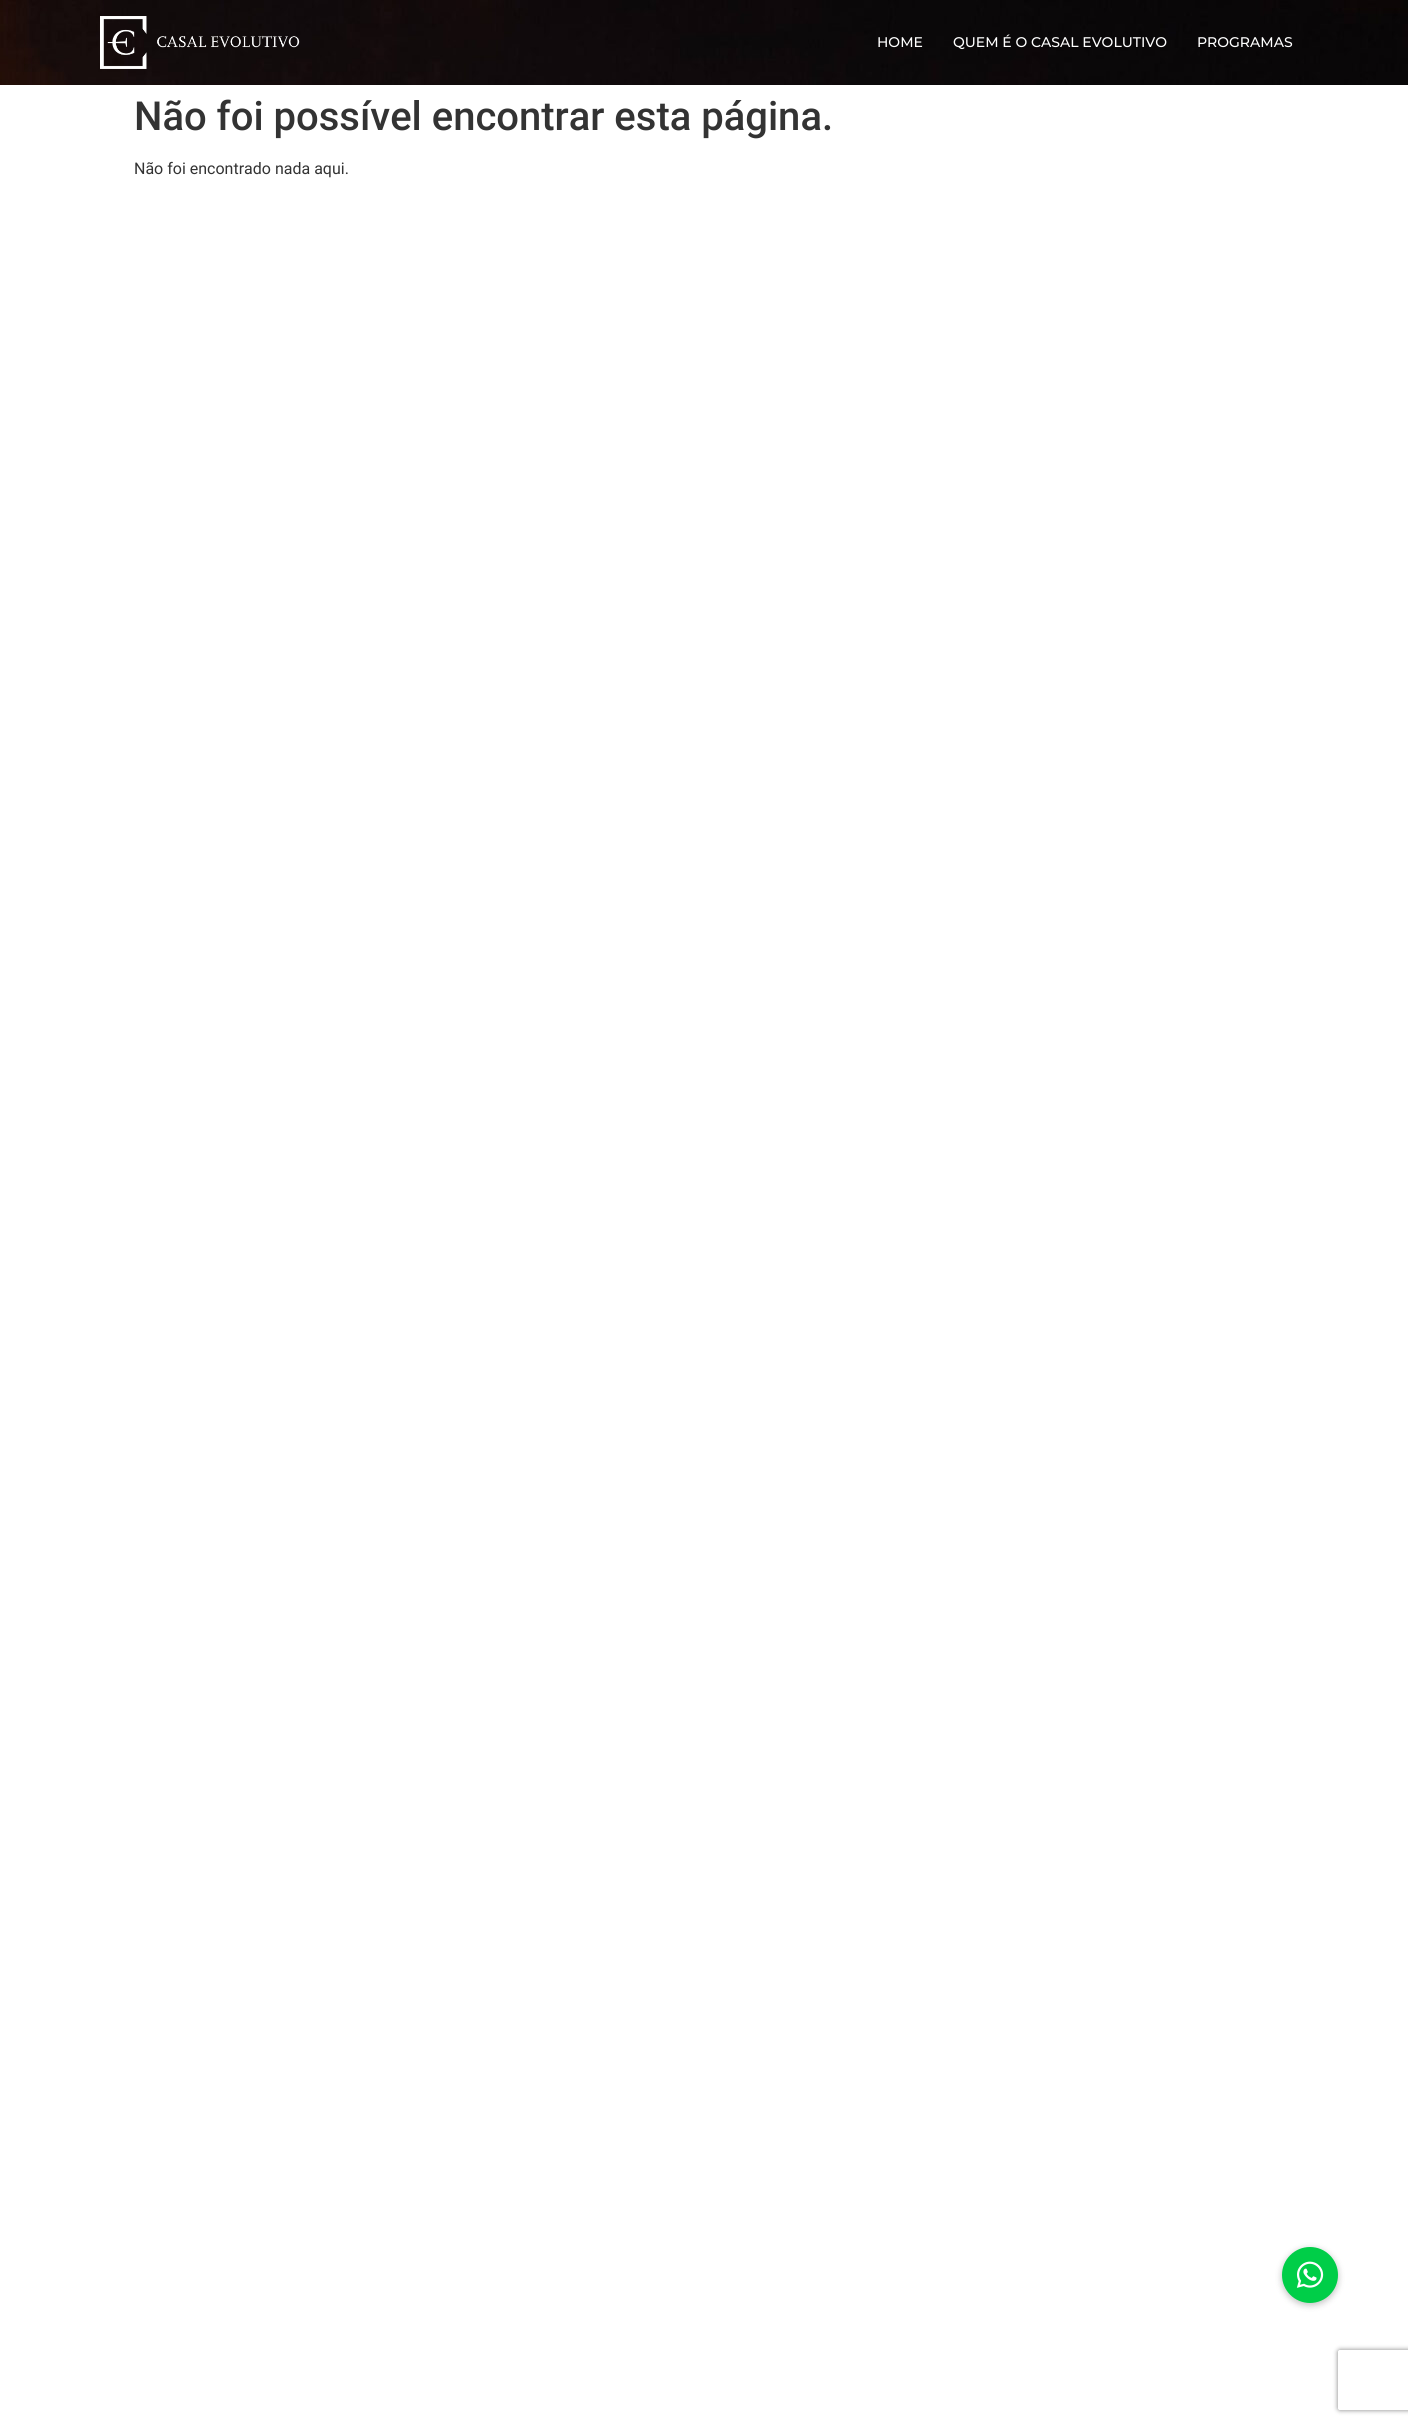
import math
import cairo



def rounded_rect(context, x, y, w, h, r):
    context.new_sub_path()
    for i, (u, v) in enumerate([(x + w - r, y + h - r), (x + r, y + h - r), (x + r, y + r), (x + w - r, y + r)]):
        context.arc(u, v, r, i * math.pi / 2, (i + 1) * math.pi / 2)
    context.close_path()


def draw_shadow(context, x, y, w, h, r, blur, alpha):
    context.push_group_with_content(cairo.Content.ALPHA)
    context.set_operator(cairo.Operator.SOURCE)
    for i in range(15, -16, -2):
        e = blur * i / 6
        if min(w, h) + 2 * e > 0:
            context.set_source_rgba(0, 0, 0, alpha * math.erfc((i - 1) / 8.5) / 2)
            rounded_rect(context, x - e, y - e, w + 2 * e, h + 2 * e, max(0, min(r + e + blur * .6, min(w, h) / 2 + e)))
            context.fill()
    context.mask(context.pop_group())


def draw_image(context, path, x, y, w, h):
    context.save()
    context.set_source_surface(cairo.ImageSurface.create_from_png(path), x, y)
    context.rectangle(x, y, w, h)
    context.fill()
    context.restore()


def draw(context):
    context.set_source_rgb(1, 1, 1)
    context.paint()
    draw_image(context, "images/1.png", 0, 0, 1408, 85)
    draw_image(context, "images/2.png", 100, 16, 200, 53)
    context.set_source_rgb(0, 0, 0)
    draw_shadow(context, 1281, 2248, 58, 58, 29, 3, 0.2)
    context.set_source_rgb(0, 206 / 255, 72 / 255)
    context.arc(1310, 2275, 28, 0, 2 * math.pi)
    context.fill()
    draw_image(context, "images/3.png", 1296, 2261, 28, 27)
    context.save()
    context.set_fill_rule(cairo.FillRule.EVEN_ODD)
    context.new_path()
    context.move_to(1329, 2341)
    context.line_to(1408, 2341)
    context.line_to(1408, 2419)
    context.line_to(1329, 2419)
    context.close_path()
    context.move_to(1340, 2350)
    context.line_to(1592, 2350)
    context.curve_to(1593, 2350, 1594, 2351, 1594, 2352)
    context.line_to(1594, 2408)
    context.curve_to(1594, 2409, 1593, 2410, 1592, 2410)
    context.line_to(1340, 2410)
    context.curve_to(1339, 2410, 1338, 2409, 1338, 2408)
    context.line_to(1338, 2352)
    context.curve_to(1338, 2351, 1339, 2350, 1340, 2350)
    context.close_path()
    context.clip()
    context.set_source_rgb(128 / 255, 128 / 255, 128 / 255)
    draw_shadow(context, 1338, 2350, 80, 60, 2, 2.5, 1)
    context.restore()
    context.select_font_face("Montserrat Medium")
    context.set_font_size(14)
    context.set_source_rgb(1, 1, 1)
    context.move_to(877, 47)
    context.show_text("HOME")
    context.move_to(953, 47)
    context.show_text("QUEM É O CASAL EVOLUTIVO")
    context.move_to(1197, 47)
    context.show_text("PROGRAMAS")
    context.select_font_face("Roboto Medium")
    context.set_font_size(40)
    context.set_source_rgb(51 / 255, 51 / 255, 51 / 255)
    context.move_to(134, 130)
    context.show_text("Não foi possível encontrar esta página.")
    context.select_font_face("Roboto")
    context.set_font_size(16)
    context.move_to(134, 174)
    context.show_text("Não foi encontrado nada aqui.")


surface = cairo.ImageSurface(cairo.Format.RGB24, 1408, 2424)
context = cairo.Context(surface)
options = cairo.FontOptions()
options.set_hint_metrics(cairo.HintMetrics.OFF)
options.set_hint_style(cairo.HintStyle.NONE)
context.set_font_options(options)
context.set_miter_limit(4)
draw(context)
surface.write_to_png("out.png")
